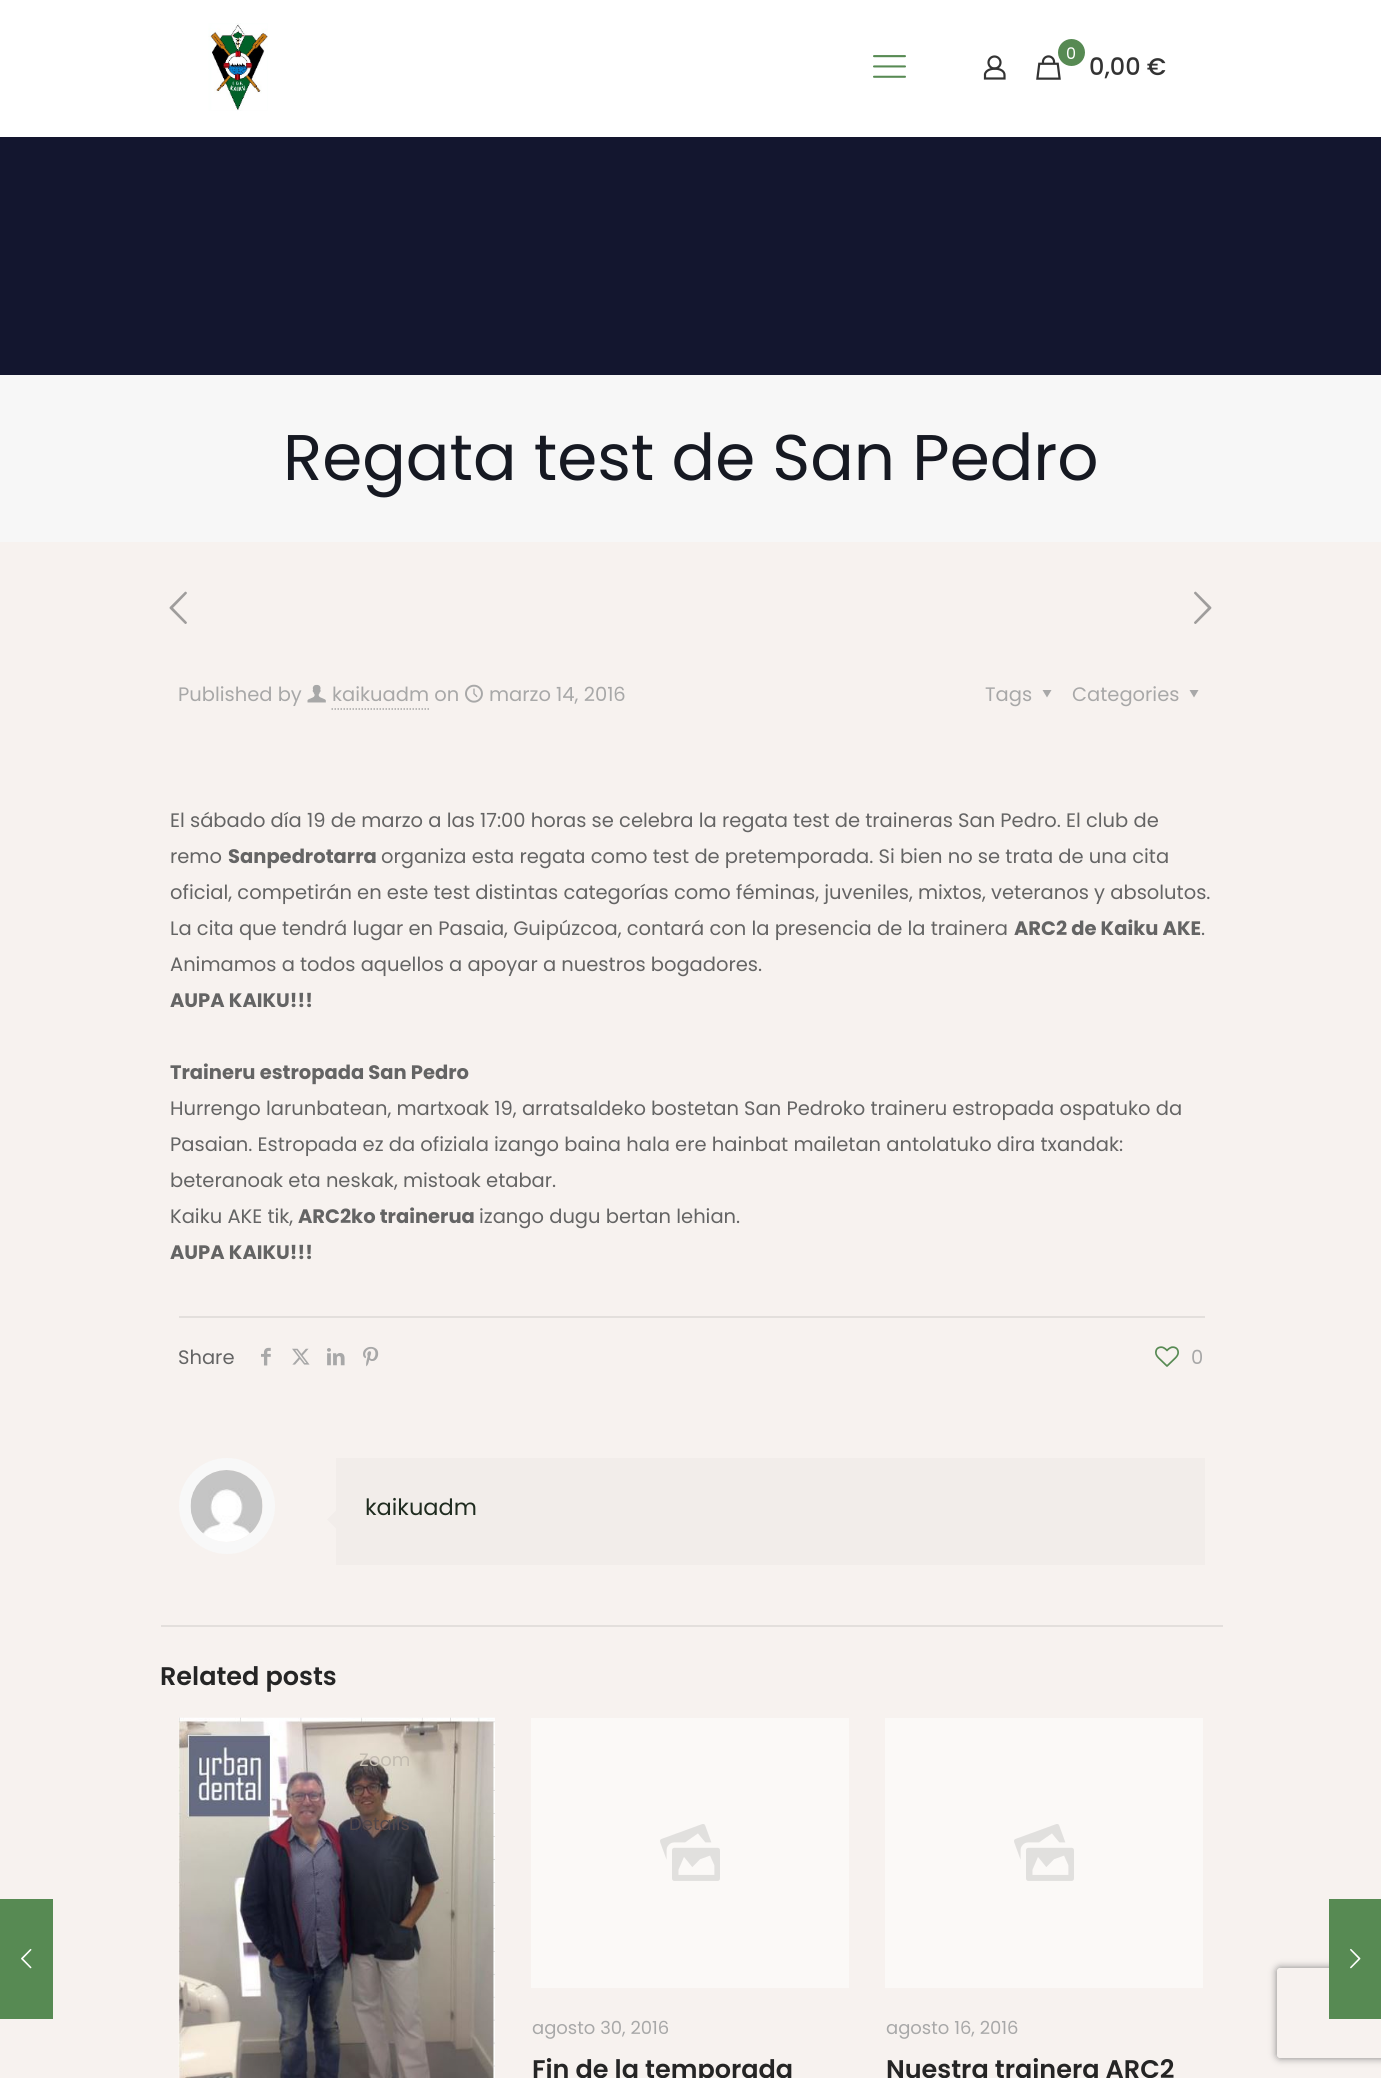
import math
import cairo



def rounded_rect(context, x, y, w, h, r):
    context.new_sub_path()
    for i, (u, v) in enumerate([(x + w - r, y + h - r), (x + r, y + h - r), (x + r, y + r), (x + w - r, y + r)]):
        context.arc(u, v, r, i * math.pi / 2, (i + 1) * math.pi / 2)
    context.close_path()


def draw_shadow(context, x, y, w, h, r, blur, alpha):
    context.push_group_with_content(cairo.Content.ALPHA)
    context.set_operator(cairo.Operator.SOURCE)
    for i in range(15, -16, -2):
        e = blur * i / 6
        if min(w, h) + 2 * e > 0:
            context.set_source_rgba(0, 0, 0, alpha * math.erfc((i - 1) / 8.5) / 2)
            rounded_rect(context, x - e, y - e, w + 2 * e, h + 2 * e, max(0, min(r + e + blur * .6, min(w, h) / 2 + e)))
            context.fill()
    context.mask(context.pop_group())


def draw_image(context, path, x, y, w, h):
    context.save()
    context.set_source_surface(cairo.ImageSurface.create_from_png(path), x, y)
    context.rectangle(x, y, w, h)
    context.fill()
    context.restore()


def draw(context):
    context.set_source_rgb(247 / 255, 242 / 255, 239 / 255)
    context.paint()
    context.set_source_rgb(87 / 255, 138 / 255, 83 / 255)
    context.rectangle(0, 1899, 53, 120)
    context.fill()
    draw_image(context, "images/1.png", 21, 1948, 11, 21)
    context.set_source_rgb(19 / 255, 22 / 255, 47 / 255)
    context.rectangle(0, 137, 1381, 238)
    context.fill()
    context.set_source_rgb(1, 1, 1)
    context.rectangle(0, 0, 1381, 137)
    context.fill()
    draw_image(context, "images/2.png", 208, 23, 60, 88)
    draw_image(context, "images/3.png", 873, 55, 33, 23)
    context.arc(994.5, 62.5, 6, 0, 2 * math.pi)
    context.set_source_rgb(51 / 255, 51 / 255, 51 / 255)
    context.set_line_width(2.2)
    context.stroke()
    context.new_path()
    context.move_to(1004.5, 75)
    context.line_to(1004.5, 78.5)
    context.line_to(985, 78.5)
    context.line_to(985, 74)
    context.curve_to(987, 66.5, 1004.5, 67, 1004.5, 75)
    context.close_path()
    context.stroke()
    draw_image(context, "images/4.png", 1036, 55, 25, 25)
    context.set_source_rgb(87 / 255, 138 / 255, 83 / 255)
    context.arc(1071.5, 52.5, 13.5, 0, 2 * math.pi)
    context.fill()
    context.set_source_rgb(247 / 255, 247 / 255, 247 / 255)
    context.rectangle(0, 375, 1381, 167)
    context.fill()
    draw_image(context, "images/5.png", 169, 591, 18, 33)
    draw_image(context, "images/6.png", 1194, 591, 18, 33)
    draw_image(context, "images/7.png", 307, 684, 19, 19)
    context.new_path()
    context.move_to(331.5, 709)
    context.line_to(429, 709)
    context.set_source_rgb(168 / 255, 168 / 255, 168 / 255)
    context.set_line_width(1.5)
    context.set_dash([1.5, 1.5])
    context.stroke()
    draw_image(context, "images/8.png", 465, 684, 18, 19)
    context.new_path()
    context.move_to(1051.5, 690)
    context.line_to(1047, 697.5)
    context.line_to(1042.5, 690)
    context.close_path()
    context.fill()
    context.new_path()
    context.move_to(1198.5, 690)
    context.line_to(1194, 697.5)
    context.line_to(1189.5, 690)
    context.close_path()
    context.fill()
    context.set_source_rgb(227 / 255, 223 / 255, 220 / 255)
    context.rectangle(179, 1316, 1026, 2)
    context.fill()
    draw_image(context, "images/9.png", 261, 1347, 10, 19)
    draw_image(context, "images/10.png", 292, 1348, 18, 17)
    draw_image(context, "images/11.png", 327, 1348, 18, 18)
    draw_image(context, "images/12.png", 363, 1346, 16, 21)
    draw_image(context, "images/13.png", 1155, 1346, 24, 21)
    context.arc(227, 1506, 42, 0, 2 * math.pi)
    context.set_source_rgb(248 / 255, 248 / 255, 248 / 255)
    context.set_line_width(12)
    context.set_dash([])
    context.stroke()
    draw_image(context, "images/14.png", 190, 1470, 73, 72)
    context.set_source_rgb(242 / 255, 237 / 255, 234 / 255)
    context.rectangle(336, 1458, 869, 107)
    context.fill()
    context.new_path()
    context.move_to(336, 1510.5)
    context.line_to(336, 1528.5)
    context.line_to(327, 1519.5)
    context.close_path()
    context.fill()
    context.set_source_rgb(227 / 255, 223 / 255, 220 / 255)
    context.rectangle(161, 1625, 1062, 2)
    context.fill()
    draw_image(context, "images/15.png", 178, 1717, 317, 361)
    context.set_source_rgb(251 / 255, 249 / 255, 247 / 255)
    context.rectangle(531, 1718, 318, 270)
    context.fill()
    draw_image(context, "images/16.png", 660, 1824, 60, 57)
    context.rectangle(885, 1718, 318, 270)
    context.fill()
    draw_image(context, "images/16.png", 1014, 1824, 60, 57)
    context.save()
    context.set_fill_rule(cairo.FillRule.EVEN_ODD)
    context.new_path()
    context.move_to(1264, 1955)
    context.line_to(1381, 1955)
    context.line_to(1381, 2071)
    context.line_to(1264, 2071)
    context.close_path()
    context.move_to(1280, 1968)
    context.line_to(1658, 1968)
    context.curve_to(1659.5, 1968, 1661, 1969.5, 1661, 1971)
    context.line_to(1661, 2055)
    context.curve_to(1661, 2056.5, 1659.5, 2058, 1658, 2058)
    context.line_to(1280, 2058)
    context.curve_to(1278.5, 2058, 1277, 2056.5, 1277, 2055)
    context.line_to(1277, 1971)
    context.curve_to(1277, 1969.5, 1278.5, 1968, 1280, 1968)
    context.close_path()
    context.clip()
    context.set_source_rgb(128 / 255, 128 / 255, 128 / 255)
    draw_shadow(context, 1277, 1968, 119, 90, 3, 4, 1)
    context.restore()
    context.set_source_rgb(87 / 255, 138 / 255, 83 / 255)
    context.rectangle(1329, 1899, 52, 120)
    context.fill()
    draw_image(context, "images/17.png", 1350, 1948, 11, 21)
    context.select_font_face("Poppins")
    context.set_font_size(16)
    context.set_source_rgb(1, 1, 1)
    context.move_to(1066, 59)
    context.show_text("0")
    context.select_font_face("Poppins Medium")
    context.set_font_size(24)
    context.set_source_rgb(51 / 255, 51 / 255, 51 / 255)
    context.move_to(1089, 75)
    context.show_text("0,00 €")
    context.select_font_face("Poppins")
    context.set_font_size(64.5)
    context.set_source_rgb(22 / 255, 25 / 255, 34 / 255)
    context.move_to(283, 480)
    context.show_text("Regata test de San Pedro")
    context.set_font_size(19.5)
    context.set_source_rgb(168 / 255, 168 / 255, 168 / 255)
    context.move_to(178, 701)
    context.show_text("Published by")
    context.move_to(332, 701)
    context.show_text("kaikuadm on")
    context.move_to(489, 701)
    context.show_text("marzo 14, 2016")
    context.move_to(985, 701)
    context.show_text("Tags")
    context.move_to(1072, 701)
    context.show_text("Categories")
    context.set_source_rgb(100 / 255, 100 / 255, 100 / 255)
    context.move_to(170, 827)
    context.show_text("El sábado día 19 de marzo a las 17:00 horas se celebra la regata test de traineras San Pedro. El club de")
    context.move_to(170, 863)
    context.show_text("remo")
    context.select_font_face("Poppins", cairo.FontSlant.NORMAL, cairo.FontWeight.BOLD)
    context.move_to(228, 863)
    context.show_text("Sanpedrotarra")
    context.select_font_face("Poppins")
    context.move_to(381, 863)
    context.show_text("organiza esta regata como test de pretemporada. Si bien no se trata de una cita")
    context.move_to(170, 899)
    context.show_text("oficial, competirán en este test distintas categorías como féminas, juveniles, mixtos, veteranos y absolutos.")
    context.move_to(170, 935)
    context.show_text("La cita que tendrá lugar en Pasaia, Guipúzcoa, contará con la presencia de la trainera")
    context.select_font_face("Poppins", cairo.FontSlant.NORMAL, cairo.FontWeight.BOLD)
    context.move_to(1014, 935)
    context.show_text("ARC2 de Kaiku AKE")
    context.select_font_face("Poppins")
    context.move_to(1201, 935)
    context.show_text(".")
    context.move_to(170, 971)
    context.show_text("Animamos a todos aquellos a apoyar a nuestros bogadores.")
    context.select_font_face("Poppins", cairo.FontSlant.NORMAL, cairo.FontWeight.BOLD)
    context.move_to(170, 1007)
    context.show_text("AUPA KAIKU!!!")
    context.move_to(170, 1079)
    context.show_text("Traineru estropada San Pedro")
    context.select_font_face("Poppins")
    context.move_to(170, 1115)
    context.show_text("Hurrengo larunbatean, martxoak 19, arratsaldeko bostetan San Pedroko traineru estropada ospatuko da")
    context.move_to(170, 1151)
    context.show_text("Pasaian. Estropada ez da ofiziala izango baina hala ere hainbat mailetan antolatuko dira txandak:")
    context.move_to(170, 1187)
    context.show_text("beteranoak eta neskak, mistoak etabar.")
    context.move_to(170, 1223)
    context.show_text("Kaiku AKE tik,")
    context.select_font_face("Poppins", cairo.FontSlant.NORMAL, cairo.FontWeight.BOLD)
    context.move_to(298, 1223)
    context.show_text("ARC2ko trainerua")
    context.select_font_face("Poppins")
    context.move_to(479, 1223)
    context.show_text("izango dugu bertan lehian.")
    context.select_font_face("Poppins", cairo.FontSlant.NORMAL, cairo.FontWeight.BOLD)
    context.move_to(170, 1259)
    context.show_text("AUPA KAIKU!!!")
    context.select_font_face("Poppins")
    context.move_to(178, 1364)
    context.show_text("Share")
    context.set_source_rgb(168 / 255, 168 / 255, 168 / 255)
    context.move_to(1191, 1364)
    context.show_text("0")
    context.set_font_size(22.5)
    context.set_source_rgb(31 / 255, 43 / 255, 31 / 255)
    context.move_to(365, 1515)
    context.show_text("kaikuadm")
    context.select_font_face("Poppins SemiBold")
    context.set_font_size(25.5)
    context.set_source_rgb(37 / 255, 37 / 255, 37 / 255)
    context.move_to(160, 1685)
    context.show_text("Related posts")
    context.select_font_face("Poppins")
    context.set_font_size(18)
    context.set_source_rgb(194 / 255, 187 / 255, 176 / 255)
    context.move_to(359, 1766)
    context.show_text("Zoom")
    context.set_source_rgb(82 / 255, 72 / 255, 75 / 255)
    context.move_to(349, 1830)
    context.show_text("Details")
    context.set_source_rgb(168 / 255, 168 / 255, 168 / 255)
    context.move_to(532, 2034)
    context.show_text("agosto 30, 2016")
    context.select_font_face("Poppins SemiBold")
    context.set_font_size(25.5)
    context.set_source_rgb(37 / 255, 37 / 255, 37 / 255)
    context.move_to(532, 2078)
    context.show_text("Fin de la temporada")
    context.select_font_face("Poppins")
    context.set_font_size(18)
    context.set_source_rgb(168 / 255, 168 / 255, 168 / 255)
    context.move_to(886, 2034)
    context.show_text("agosto 16, 2016")
    context.select_font_face("Poppins SemiBold")
    context.set_font_size(25.5)
    context.set_source_rgb(37 / 255, 37 / 255, 37 / 255)
    context.move_to(886, 2078)
    context.show_text("Nuestra trainera ARC2")


surface = cairo.ImageSurface(cairo.Format.RGB24, 1381, 2078)
context = cairo.Context(surface)
options = cairo.FontOptions()
options.set_hint_metrics(cairo.HintMetrics.OFF)
options.set_hint_style(cairo.HintStyle.NONE)
context.set_font_options(options)
context.set_miter_limit(4)
draw(context)
surface.write_to_png("out.png")
